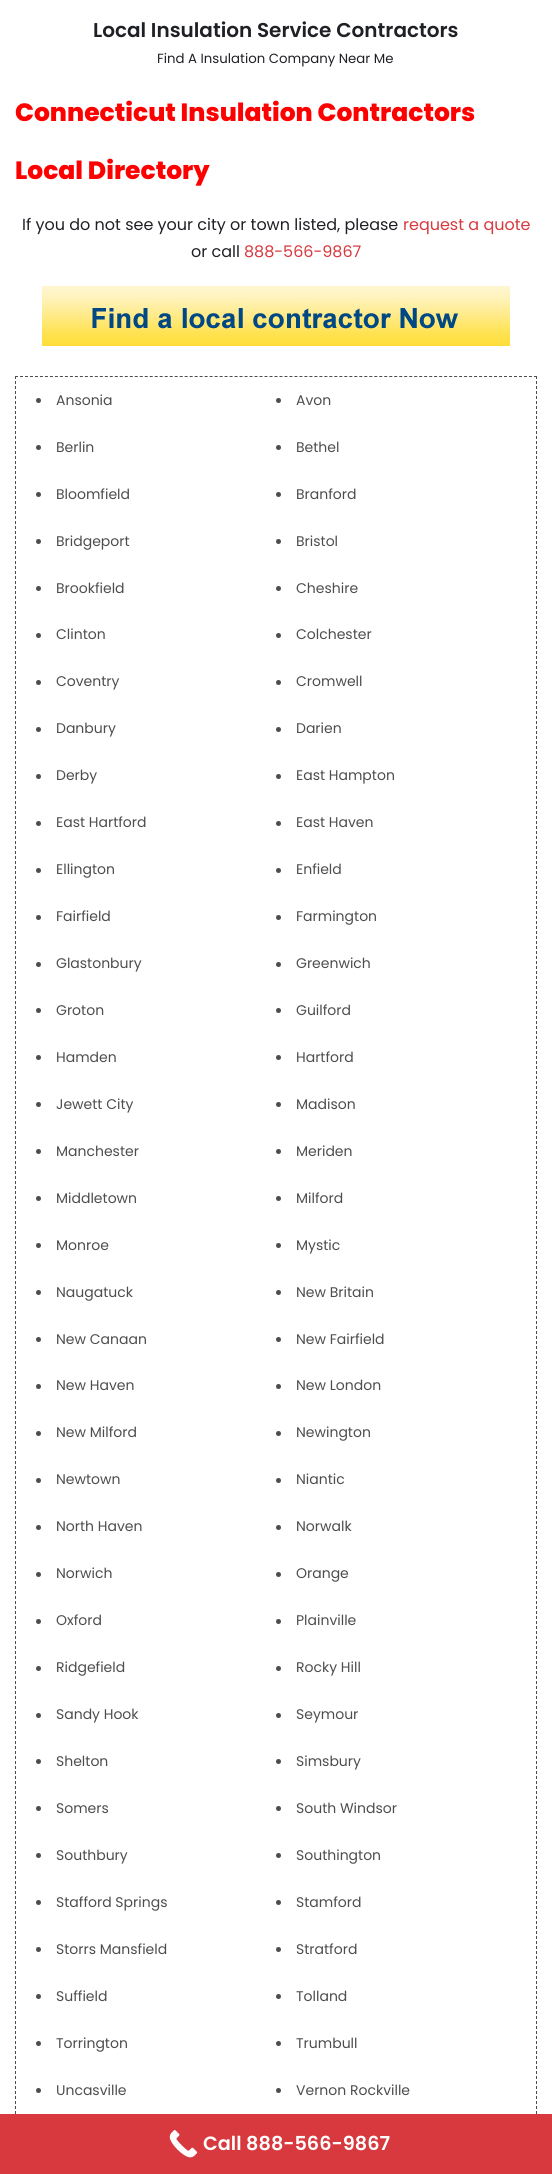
import math
import cairo



def draw_image(context, path, x, y, w, h):
    context.save()
    context.set_source_surface(cairo.ImageSurface.create_from_png(path), x, y)
    context.rectangle(x, y, w, h)
    context.fill()
    context.restore()


def draw(context):
    context.set_source_rgb(1, 1, 1)
    context.paint()
    draw_image(context, "images/1.png", 42, 286, 468, 60)
    context.new_path()
    context.move_to(15, 376.5)
    context.line_to(537, 376.5)
    context.set_source_rgb(77 / 255, 77 / 255, 77 / 255)
    context.set_line_width(1)
    context.set_dash([3, 1.99])
    context.stroke()
    context.new_path()
    context.move_to(536.5, 376)
    context.line_to(536.5, 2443)
    context.set_dash([3, 2])
    context.stroke()
    context.new_path()
    context.move_to(15.5, 376)
    context.line_to(15.5, 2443)
    context.stroke()
    context.arc(38.5, 400.5, 2.5, 0, 2 * math.pi)
    context.fill()
    context.arc(278.5, 400.5, 2.5, 0, 2 * math.pi)
    context.fill()
    context.arc(38.5, 447.5, 2.5, 0, 2 * math.pi)
    context.fill()
    context.arc(278.5, 447.5, 2.5, 0, 2 * math.pi)
    context.fill()
    context.arc(38.5, 494.5, 2.5, 0, 2 * math.pi)
    context.fill()
    context.arc(278.5, 494.5, 2.5, 0, 2 * math.pi)
    context.fill()
    context.arc(38.5, 541.5, 2.5, 0, 2 * math.pi)
    context.fill()
    context.arc(278.5, 541.5, 2.5, 0, 2 * math.pi)
    context.fill()
    context.arc(38.5, 588.5, 2.5, 0, 2 * math.pi)
    context.fill()
    context.arc(278.5, 588.5, 2.5, 0, 2 * math.pi)
    context.fill()
    context.arc(38.5, 635.5, 2.5, 0, 2 * math.pi)
    context.fill()
    context.arc(278.5, 635.5, 2.5, 0, 2 * math.pi)
    context.fill()
    context.arc(38.5, 682.5, 2.5, 0, 2 * math.pi)
    context.fill()
    context.arc(278.5, 682.5, 2.5, 0, 2 * math.pi)
    context.fill()
    context.arc(38.5, 729.5, 2.5, 0, 2 * math.pi)
    context.fill()
    context.arc(278.5, 729.5, 2.5, 0, 2 * math.pi)
    context.fill()
    context.arc(38.5, 776.5, 2.5, 0, 2 * math.pi)
    context.fill()
    context.arc(278.5, 776.5, 2.5, 0, 2 * math.pi)
    context.fill()
    context.arc(38.5, 823.5, 2.5, 0, 2 * math.pi)
    context.fill()
    context.arc(278.5, 823.5, 2.5, 0, 2 * math.pi)
    context.fill()
    context.arc(38.5, 870.5, 2.5, 0, 2 * math.pi)
    context.fill()
    context.arc(278.5, 870.5, 2.5, 0, 2 * math.pi)
    context.fill()
    context.arc(38.5, 917.5, 2.5, 0, 2 * math.pi)
    context.fill()
    context.arc(278.5, 917.5, 2.5, 0, 2 * math.pi)
    context.fill()
    context.arc(38.5, 964.5, 2.5, 0, 2 * math.pi)
    context.fill()
    context.arc(278.5, 964.5, 2.5, 0, 2 * math.pi)
    context.fill()
    context.arc(38.5, 1010.5, 2.5, 0, 2 * math.pi)
    context.fill()
    context.arc(278.5, 1010.5, 2.5, 0, 2 * math.pi)
    context.fill()
    context.arc(38.5, 1057.5, 2.5, 0, 2 * math.pi)
    context.fill()
    context.arc(278.5, 1057.5, 2.5, 0, 2 * math.pi)
    context.fill()
    context.arc(38.5, 1104.5, 2.5, 0, 2 * math.pi)
    context.fill()
    context.arc(278.5, 1104.5, 2.5, 0, 2 * math.pi)
    context.fill()
    context.arc(38.5, 1151.5, 2.5, 0, 2 * math.pi)
    context.fill()
    context.arc(278.5, 1151.5, 2.5, 0, 2 * math.pi)
    context.fill()
    context.arc(38.5, 1198.5, 2.5, 0, 2 * math.pi)
    context.fill()
    context.arc(278.5, 1198.5, 2.5, 0, 2 * math.pi)
    context.fill()
    context.arc(38.5, 1245.5, 2.5, 0, 2 * math.pi)
    context.fill()
    context.arc(278.5, 1245.5, 2.5, 0, 2 * math.pi)
    context.fill()
    context.arc(38.5, 1292.5, 2.5, 0, 2 * math.pi)
    context.fill()
    context.arc(278.5, 1292.5, 2.5, 0, 2 * math.pi)
    context.fill()
    context.arc(38.5, 1339.5, 2.5, 0, 2 * math.pi)
    context.fill()
    context.arc(278.5, 1339.5, 2.5, 0, 2 * math.pi)
    context.fill()
    context.arc(38.5, 1386.5, 2.5, 0, 2 * math.pi)
    context.fill()
    context.arc(278.5, 1386.5, 2.5, 0, 2 * math.pi)
    context.fill()
    context.arc(38.5, 1433.5, 2.5, 0, 2 * math.pi)
    context.fill()
    context.arc(278.5, 1433.5, 2.5, 0, 2 * math.pi)
    context.fill()
    context.arc(38.5, 1480.5, 2.5, 0, 2 * math.pi)
    context.fill()
    context.arc(278.5, 1480.5, 2.5, 0, 2 * math.pi)
    context.fill()
    context.arc(38.5, 1527.5, 2.5, 0, 2 * math.pi)
    context.fill()
    context.arc(278.5, 1527.5, 2.5, 0, 2 * math.pi)
    context.fill()
    context.arc(38.5, 1574.5, 2.5, 0, 2 * math.pi)
    context.fill()
    context.arc(278.5, 1574.5, 2.5, 0, 2 * math.pi)
    context.fill()
    context.arc(38.5, 1621.5, 2.5, 0, 2 * math.pi)
    context.fill()
    context.arc(278.5, 1621.5, 2.5, 0, 2 * math.pi)
    context.fill()
    context.arc(38.5, 1668.5, 2.5, 0, 2 * math.pi)
    context.fill()
    context.arc(278.5, 1668.5, 2.5, 0, 2 * math.pi)
    context.fill()
    context.arc(38.5, 1715.5, 2.5, 0, 2 * math.pi)
    context.fill()
    context.arc(278.5, 1715.5, 2.5, 0, 2 * math.pi)
    context.fill()
    context.arc(38.5, 1761.5, 2.5, 0, 2 * math.pi)
    context.fill()
    context.arc(278.5, 1761.5, 2.5, 0, 2 * math.pi)
    context.fill()
    context.arc(38.5, 1808.5, 2.5, 0, 2 * math.pi)
    context.fill()
    context.arc(278.5, 1808.5, 2.5, 0, 2 * math.pi)
    context.fill()
    context.arc(38.5, 1855.5, 2.5, 0, 2 * math.pi)
    context.fill()
    context.arc(278.5, 1855.5, 2.5, 0, 2 * math.pi)
    context.fill()
    context.arc(38.5, 1902.5, 2.5, 0, 2 * math.pi)
    context.fill()
    context.arc(278.5, 1902.5, 2.5, 0, 2 * math.pi)
    context.fill()
    context.arc(38.5, 1949.5, 2.5, 0, 2 * math.pi)
    context.fill()
    context.arc(278.5, 1949.5, 2.5, 0, 2 * math.pi)
    context.fill()
    context.arc(38.5, 1996.5, 2.5, 0, 2 * math.pi)
    context.fill()
    context.arc(278.5, 1996.5, 2.5, 0, 2 * math.pi)
    context.fill()
    context.arc(38.5, 2043.5, 2.5, 0, 2 * math.pi)
    context.fill()
    context.arc(278.5, 2043.5, 2.5, 0, 2 * math.pi)
    context.fill()
    context.arc(38.5, 2090.5, 2.5, 0, 2 * math.pi)
    context.fill()
    context.arc(278.5, 2090.5, 2.5, 0, 2 * math.pi)
    context.fill()
    context.set_source_rgb(215 / 255, 57 / 255, 62 / 255)
    context.rectangle(0, 2114, 552, 60)
    context.fill()
    draw_image(context, "images/2.png", 169, 2130, 29, 28)
    context.select_font_face("Poppins SemiBold")
    context.set_font_size(20)
    context.set_source_rgb(31 / 255, 32 / 255, 37 / 255)
    context.move_to(93, 37)
    context.show_text("Local Insulation Service Contractors")
    context.select_font_face("Poppins")
    context.set_font_size(13.3)
    context.move_to(157, 63)
    context.show_text("Find A Insulation Company Near Me")
    context.select_font_face("Poppins ExtraBold")
    context.set_font_size(25)
    context.set_source_rgb(1, 0, 0)
    context.move_to(15, 121)
    context.show_text("Connecticut Insulation Contractors")
    context.move_to(15, 179)
    context.show_text("Local Directory")
    context.select_font_face("Poppins")
    context.set_font_size(16)
    context.set_source_rgb(31 / 255, 32 / 255, 37 / 255)
    context.move_to(22, 230)
    context.show_text("If you do not see your city or town listed, please")
    context.set_source_rgb(215 / 255, 57 / 255, 62 / 255)
    context.move_to(403, 230)
    context.show_text("request a quote")
    context.set_source_rgb(31 / 255, 32 / 255, 37 / 255)
    context.move_to(191, 257)
    context.show_text("or call")
    context.set_source_rgb(215 / 255, 57 / 255, 62 / 255)
    context.move_to(244, 257)
    context.show_text("888-566-9867")
    context.set_font_size(14)
    context.set_source_rgb(77 / 255, 77 / 255, 77 / 255)
    context.move_to(56, 405)
    context.show_text("Ansonia")
    context.move_to(296, 405)
    context.show_text("Avon")
    context.move_to(56, 452)
    context.show_text("Berlin")
    context.move_to(296, 452)
    context.show_text("Bethel")
    context.move_to(56, 499)
    context.show_text("Bloomfield")
    context.move_to(296, 499)
    context.show_text("Branford")
    context.move_to(56, 546)
    context.show_text("Bridgeport")
    context.move_to(296, 546)
    context.show_text("Bristol")
    context.move_to(56, 593)
    context.show_text("Brookfield")
    context.move_to(296, 593)
    context.show_text("Cheshire")
    context.move_to(56, 639)
    context.show_text("Clinton")
    context.move_to(296, 639)
    context.show_text("Colchester")
    context.move_to(56, 686)
    context.show_text("Coventry")
    context.move_to(296, 686)
    context.show_text("Cromwell")
    context.move_to(56, 733)
    context.show_text("Danbury")
    context.move_to(296, 733)
    context.show_text("Darien")
    context.move_to(56, 780)
    context.show_text("Derby")
    context.move_to(296, 780)
    context.show_text("East Hampton")
    context.move_to(56, 827)
    context.show_text("East Hartford")
    context.move_to(296, 827)
    context.show_text("East Haven")
    context.move_to(56, 874)
    context.show_text("Ellington")
    context.move_to(296, 874)
    context.show_text("Enfield")
    context.move_to(56, 921)
    context.show_text("Fairfield")
    context.move_to(296, 921)
    context.show_text("Farmington")
    context.move_to(56, 968)
    context.show_text("Glastonbury")
    context.move_to(296, 968)
    context.show_text("Greenwich")
    context.move_to(56, 1015)
    context.show_text("Groton")
    context.move_to(296, 1015)
    context.show_text("Guilford")
    context.move_to(56, 1062)
    context.show_text("Hamden")
    context.move_to(296, 1062)
    context.show_text("Hartford")
    context.move_to(56, 1109)
    context.show_text("Jewett City")
    context.move_to(296, 1109)
    context.show_text("Madison")
    context.move_to(56, 1156)
    context.show_text("Manchester")
    context.move_to(296, 1156)
    context.show_text("Meriden")
    context.move_to(56, 1203)
    context.show_text("Middletown")
    context.move_to(296, 1203)
    context.show_text("Milford")
    context.move_to(56, 1250)
    context.show_text("Monroe")
    context.move_to(296, 1250)
    context.show_text("Mystic")
    context.move_to(56, 1297)
    context.show_text("Naugatuck")
    context.move_to(296, 1297)
    context.show_text("New Britain")
    context.move_to(56, 1344)
    context.show_text("New Canaan")
    context.move_to(296, 1344)
    context.show_text("New Fairfield")
    context.move_to(56, 1390)
    context.show_text("New Haven")
    context.move_to(296, 1390)
    context.show_text("New London")
    context.move_to(56, 1437)
    context.show_text("New Milford")
    context.move_to(296, 1437)
    context.show_text("Newington")
    context.move_to(56, 1484)
    context.show_text("Newtown")
    context.move_to(296, 1484)
    context.show_text("Niantic")
    context.move_to(56, 1531)
    context.show_text("North Haven")
    context.move_to(296, 1531)
    context.show_text("Norwalk")
    context.move_to(56, 1578)
    context.show_text("Norwich")
    context.move_to(296, 1578)
    context.show_text("Orange")
    context.move_to(56, 1625)
    context.show_text("Oxford")
    context.move_to(296, 1625)
    context.show_text("Plainville")
    context.move_to(56, 1672)
    context.show_text("Ridgefield")
    context.move_to(296, 1672)
    context.show_text("Rocky Hill")
    context.move_to(56, 1719)
    context.show_text("Sandy Hook")
    context.move_to(296, 1719)
    context.show_text("Seymour")
    context.move_to(56, 1766)
    context.show_text("Shelton")
    context.move_to(296, 1766)
    context.show_text("Simsbury")
    context.move_to(56, 1813)
    context.show_text("Somers")
    context.move_to(296, 1813)
    context.show_text("South Windsor")
    context.move_to(56, 1860)
    context.show_text("Southbury")
    context.move_to(296, 1860)
    context.show_text("Southington")
    context.move_to(56, 1907)
    context.show_text("Stafford Springs")
    context.move_to(296, 1907)
    context.show_text("Stamford")
    context.move_to(56, 1954)
    context.show_text("Storrs Mansfield")
    context.move_to(296, 1954)
    context.show_text("Stratford")
    context.move_to(56, 2001)
    context.show_text("Suffield")
    context.move_to(296, 2001)
    context.show_text("Tolland")
    context.move_to(56, 2048)
    context.show_text("Torrington")
    context.move_to(296, 2048)
    context.show_text("Trumbull")
    context.move_to(56, 2095)
    context.show_text("Uncasville")
    context.move_to(296, 2095)
    context.show_text("Vernon Rockville")
    context.select_font_face("Poppins SemiBold")
    context.set_font_size(19.25)
    context.set_source_rgb(1, 1, 1)
    context.move_to(203, 2150)
    context.show_text("Call 888-566-9867")


surface = cairo.ImageSurface(cairo.Format.RGB24, 552, 2174)
context = cairo.Context(surface)
options = cairo.FontOptions()
options.set_hint_metrics(cairo.HintMetrics.OFF)
options.set_hint_style(cairo.HintStyle.NONE)
context.set_font_options(options)
context.set_miter_limit(4)
draw(context)
surface.write_to_png("out.png")
